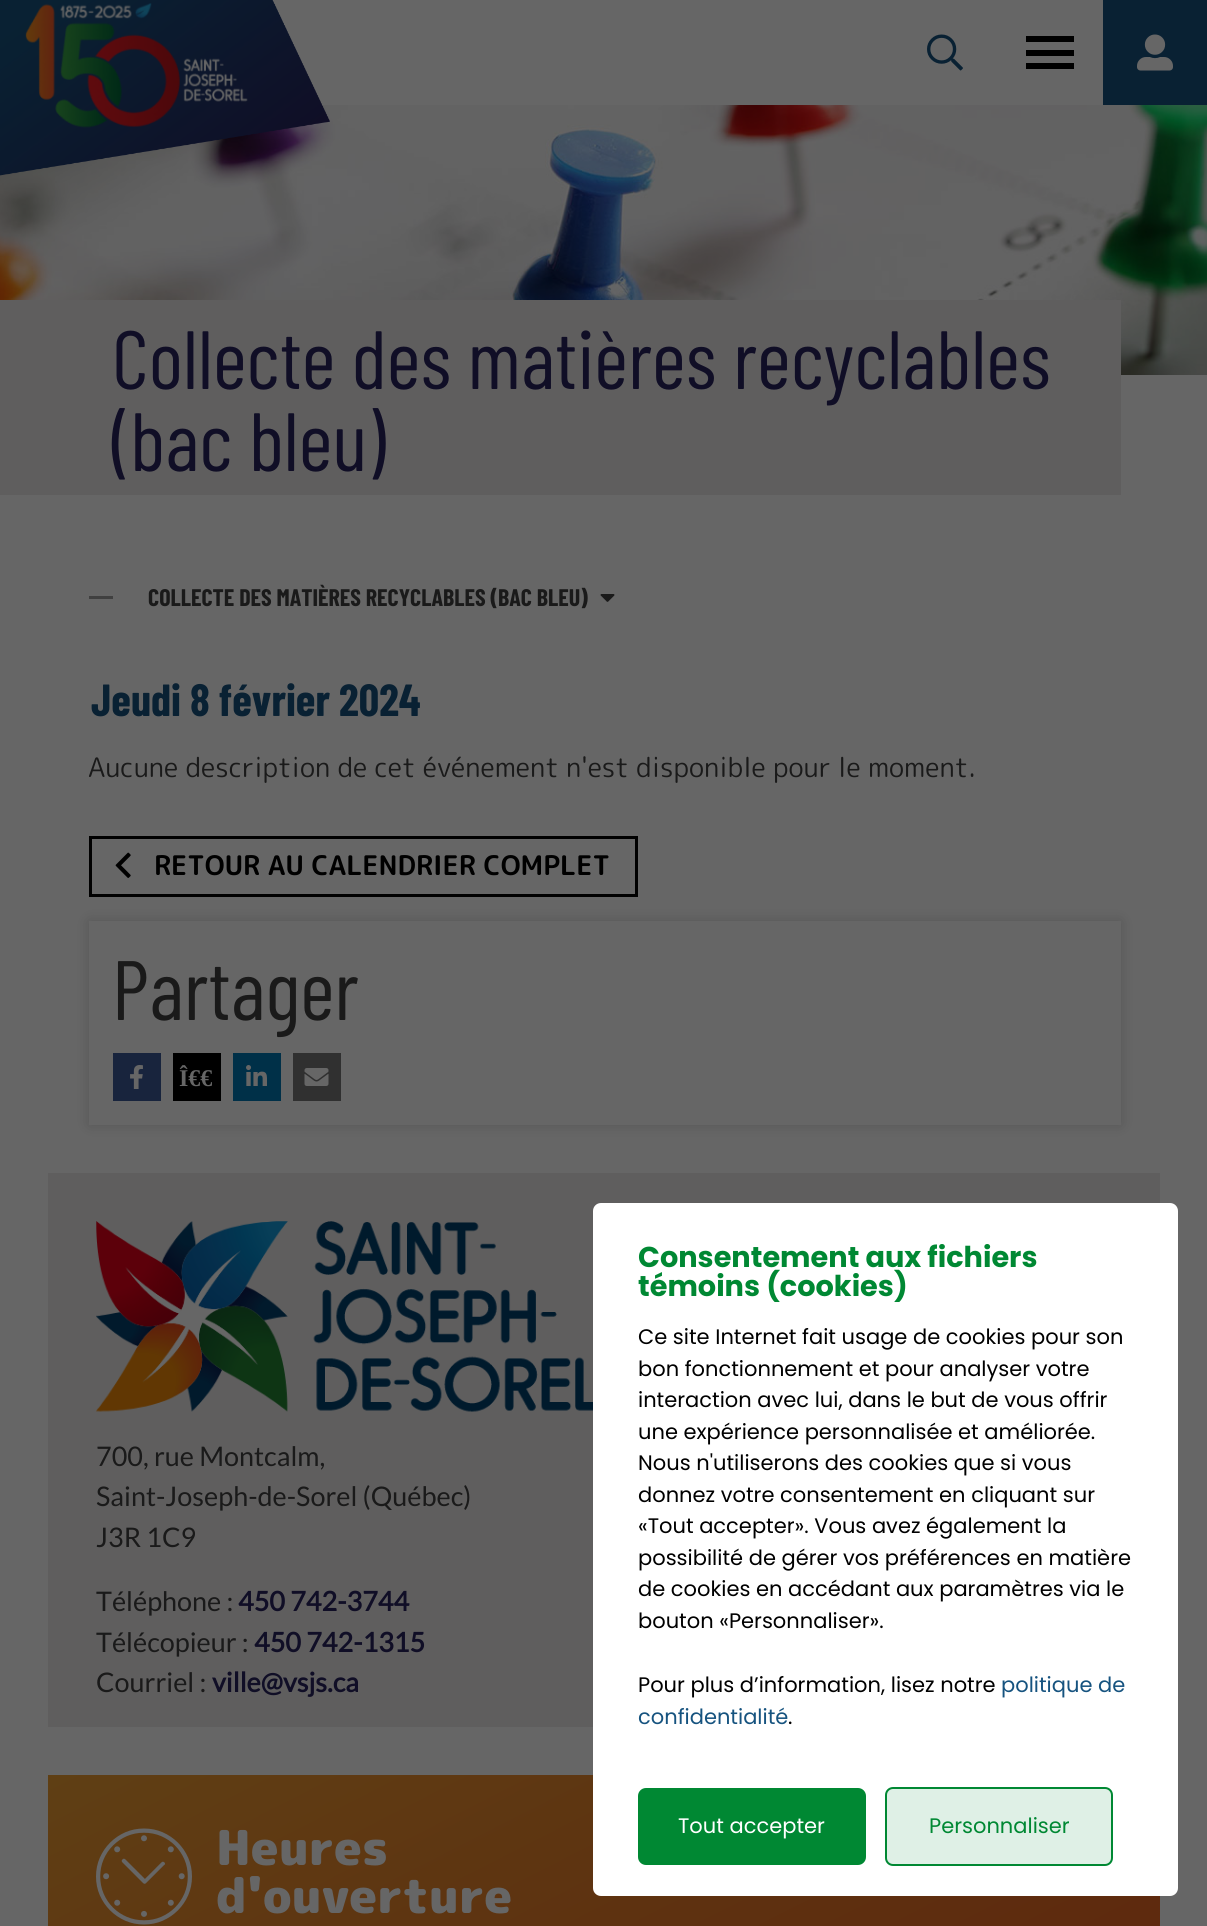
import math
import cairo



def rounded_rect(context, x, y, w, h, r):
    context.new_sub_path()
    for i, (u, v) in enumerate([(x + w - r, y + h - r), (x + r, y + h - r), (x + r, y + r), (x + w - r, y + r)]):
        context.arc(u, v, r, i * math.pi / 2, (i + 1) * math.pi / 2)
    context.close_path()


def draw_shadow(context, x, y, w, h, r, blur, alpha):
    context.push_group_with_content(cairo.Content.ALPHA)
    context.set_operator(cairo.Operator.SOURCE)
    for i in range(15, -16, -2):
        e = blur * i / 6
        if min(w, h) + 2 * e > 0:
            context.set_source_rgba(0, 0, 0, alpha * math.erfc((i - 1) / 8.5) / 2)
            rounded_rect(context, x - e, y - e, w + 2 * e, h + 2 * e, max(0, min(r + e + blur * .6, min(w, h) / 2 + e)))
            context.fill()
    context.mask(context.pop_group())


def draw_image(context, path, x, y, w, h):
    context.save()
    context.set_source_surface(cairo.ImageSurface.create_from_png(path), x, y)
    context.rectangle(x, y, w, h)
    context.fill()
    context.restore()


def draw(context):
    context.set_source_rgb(102 / 255, 102 / 255, 102 / 255)
    context.paint()
    draw_image(context, "images/5.png", 0, 105, 1207, 270)
    draw_image(context, "images/1.png", 0, 0, 330, 176)
    draw_image(context, "images/2.png", 25, 3, 223, 125)
    draw_image(context, "images/3.png", 927, 34, 36, 37)
    context.set_source_rgb(0, 0, 0)
    context.rectangle(1026, 36, 48, 6)
    context.fill()
    context.rectangle(1026, 50, 48, 6)
    context.fill()
    context.rectangle(1026, 63, 48, 6)
    context.fill()
    context.set_source_rgb(9 / 255, 33 / 255, 51 / 255)
    context.rectangle(1103, 0, 104, 105)
    context.fill()
    draw_image(context, "images/4.png", 1137, 34, 36, 37)
    context.set_source_rgb(95 / 255, 94 / 255, 94 / 255)
    context.rectangle(0, 300, 1121, 195)
    context.fill()
    context.set_source_rgb(64 / 255, 64 / 255, 64 / 255)
    context.rectangle(89, 596, 24, 3)
    context.fill()
    draw_image(context, "images/6.png", 600, 594, 15, 8)
    context.rectangle(90.5, 837.5, 546, 58)
    context.set_source_rgb(0, 0, 0)
    context.set_line_width(3)
    context.stroke()
    draw_image(context, "images/7.png", 115, 852, 16, 26)
    context.set_source_rgb(0, 0, 0)
    draw_shadow(context, 89, 921, 1032, 204, 0, 7.5, 0.15)
    context.set_source_rgb(102 / 255, 102 / 255, 102 / 255)
    context.rectangle(89, 921, 1032, 204)
    context.fill()
    context.set_source_rgb(24 / 255, 36 / 255, 61 / 255)
    context.rectangle(113, 1053, 48, 48)
    context.fill()
    draw_image(context, "images/8.png", 130, 1065, 13, 24)
    context.set_source_rgb(0, 0, 0)
    context.rectangle(173, 1053, 48, 48)
    context.fill()
    context.set_source_rgb(0, 48 / 255, 72 / 255)
    context.rectangle(233, 1053, 48, 48)
    context.fill()
    draw_image(context, "images/9.png", 246, 1065, 21, 21)
    context.set_source_rgb(48 / 255, 48 / 255, 48 / 255)
    context.rectangle(293, 1053, 48, 48)
    context.fill()
    draw_image(context, "images/10.png", 304, 1068, 25, 18)
    context.set_source_rgb(95 / 255, 94 / 255, 94 / 255)
    context.rectangle(48, 1173, 1112, 554)
    context.fill()
    draw_image(context, "images/11.png", 96, 1221, 497, 191)
    gradient = cairo.LinearGradient(396, 1597, 811, 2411)
    gradient.add_color_stop_rgba(0, 95 / 255, 63 / 255, 20 / 255, 1)
    gradient.add_color_stop_rgba(1, 93 / 255, 32 / 255, 11 / 255, 1)
    context.set_source(gradient)
    context.rectangle(48, 1775, 1112, 151)
    context.fill()
    draw_image(context, "images/12.png", 96, 1828, 96, 97)
    context.set_source_rgb(1, 1, 1)
    rounded_rect(context, 593, 1203, 585, 693, 8)
    context.fill()
    context.set_source_rgb(0, 136 / 255, 51 / 255)
    rounded_rect(context, 638, 1788, 228, 77, 8)
    context.fill()
    context.set_source_rgb(223 / 255, 240 / 255, 230 / 255)
    rounded_rect(context, 886, 1788, 226, 77, 7)
    context.fill_preserve()
    context.set_source_rgb(0, 136 / 255, 51 / 255)
    context.set_line_width(2)
    context.stroke()
    context.select_font_face("Barlow Condensed")
    context.set_font_size(82.5)
    context.set_source_rgb(16 / 255, 14 / 255, 38 / 255)
    context.move_to(112, 389)
    context.show_text("Collecte des matières recyclables")
    context.move_to(112, 471)
    context.show_text("(bac bleu)")
    context.select_font_face("Barlow Condensed", cairo.FontSlant.NORMAL, cairo.FontWeight.BOLD)
    context.set_font_size(24)
    context.set_source_rgb(26 / 255, 26 / 255, 26 / 255)
    context.move_to(148, 606)
    context.show_text("COLLECTE DES MATIÈRES RECYCLABLES (BAC BLEU)")
    context.set_font_size(45)
    context.set_source_rgb(9 / 255, 33 / 255, 51 / 255)
    context.move_to(91, 716)
    context.show_text("Jeudi 8 février 2024")
    context.select_font_face("Rounded Mplus 1c")
    context.set_font_size(27)
    context.set_source_rgb(26 / 255, 26 / 255, 26 / 255)
    context.move_to(88, 777)
    context.show_text("Aucune description de cet événement n'est disponible pour le moment.")
    context.select_font_face("Rounded Mplus 1c Bold", cairo.FontSlant.NORMAL, cairo.FontWeight.BOLD)
    context.set_source_rgb(0, 0, 0)
    context.move_to(154, 875)
    context.show_text("RETOUR AU CALENDRIER COMPLET")
    context.select_font_face("Barlow Condensed")
    context.set_font_size(84)
    context.set_source_rgb(26 / 255, 26 / 255, 26 / 255)
    context.move_to(112, 1020)
    context.show_text("Partager")
    context.select_font_face("Liberation Serif", cairo.FontSlant.NORMAL, cairo.FontWeight.BOLD)
    context.set_font_size(24)
    context.set_source_rgb(102 / 255, 102 / 255, 102 / 255)
    context.move_to(179, 1086)
    context.show_text("Î€€")
    context.select_font_face("Lato")
    context.set_font_size(27)
    context.set_source_rgb(26 / 255, 26 / 255, 26 / 255)
    context.move_to(96, 1466)
    context.show_text("700, rue Montcalm,")
    context.move_to(96, 1506)
    context.show_text("Saint-Joseph-de-Sorel (Québec)")
    context.move_to(96, 1547)
    context.show_text("J3R 1C9")
    context.move_to(96, 1611)
    context.show_text("Téléphone :")
    context.select_font_face("Lato", cairo.FontSlant.NORMAL, cairo.FontWeight.BOLD)
    context.set_source_rgb(16 / 255, 14 / 255, 38 / 255)
    context.move_to(238, 1611)
    context.show_text("450 742-3744")
    context.select_font_face("Lato")
    context.set_source_rgb(26 / 255, 26 / 255, 26 / 255)
    context.move_to(96, 1652)
    context.show_text("Télécopieur :")
    context.select_font_face("Lato", cairo.FontSlant.NORMAL, cairo.FontWeight.BOLD)
    context.set_source_rgb(16 / 255, 14 / 255, 38 / 255)
    context.move_to(254, 1652)
    context.show_text("450 742-1315")
    context.select_font_face("Lato")
    context.set_source_rgb(26 / 255, 26 / 255, 26 / 255)
    context.move_to(96, 1692)
    context.show_text("Courriel :")
    context.select_font_face("Lato", cairo.FontSlant.NORMAL, cairo.FontWeight.BOLD)
    context.set_source_rgb(16 / 255, 14 / 255, 38 / 255)
    context.move_to(212, 1692)
    context.show_text("ville@vsjs.ca")
    context.select_font_face("Rounded Mplus 1c Black")
    context.set_font_size(48)
    context.set_source_rgb(102 / 255, 102 / 255, 102 / 255)
    context.move_to(216, 1865)
    context.show_text("Heures")
    context.move_to(216, 1913)
    context.show_text("d'ouverture")
    context.select_font_face("Poppins", cairo.FontSlant.NORMAL, cairo.FontWeight.BOLD)
    context.set_font_size(28.75)
    context.set_source_rgb(0, 136 / 255, 51 / 255)
    context.move_to(638, 1267)
    context.show_text("Consentement aux fichiers")
    context.move_to(638, 1296)
    context.show_text("témoins (cookies)")
    context.select_font_face("Poppins")
    context.set_font_size(21)
    context.set_source_rgb(0, 0, 0)
    context.move_to(638, 1344)
    context.show_text("Ce site Internet fait usage de cookies pour son")
    context.move_to(638, 1376)
    context.show_text("bon fonctionnement et pour analyser votre")
    context.move_to(638, 1407)
    context.show_text("interaction avec lui, dans le but de vous offrir")
    context.move_to(638, 1439)
    context.show_text("une expérience personnalisée et améliorée.")
    context.move_to(638, 1470)
    context.show_text("Nous n'utiliserons des cookies que si vous")
    context.move_to(638, 1502)
    context.show_text("donnez votre consentement en cliquant sur")
    context.move_to(638, 1533)
    context.show_text("«Tout accepter». Vous avez également la")
    context.move_to(638, 1565)
    context.show_text("possibilité de gérer vos préférences en matière")
    context.move_to(638, 1596)
    context.show_text("de cookies en accédant aux paramètres via le")
    context.move_to(638, 1628)
    context.show_text("bouton «Personnaliser».")
    context.move_to(638, 1692)
    context.show_text("Pour plus d’information, lisez notre")
    context.set_source_rgb(22 / 255, 83 / 255, 127 / 255)
    context.move_to(1001, 1692)
    context.show_text("politique de")
    context.move_to(638, 1724)
    context.show_text("confidentialité")
    context.set_source_rgb(0, 0, 0)
    context.move_to(788, 1724)
    context.show_text(".")
    context.set_source_rgb(1, 1, 1)
    context.move_to(678, 1833)
    context.show_text("Tout accepter")
    context.set_source_rgb(0, 136 / 255, 51 / 255)
    context.move_to(929, 1833)
    context.show_text("Personnaliser")


surface = cairo.ImageSurface(cairo.Format.RGB24, 1207, 1926)
context = cairo.Context(surface)
options = cairo.FontOptions()
options.set_hint_metrics(cairo.HintMetrics.OFF)
options.set_hint_style(cairo.HintStyle.NONE)
context.set_font_options(options)
context.set_miter_limit(4)
draw(context)
surface.write_to_png("out.png")
